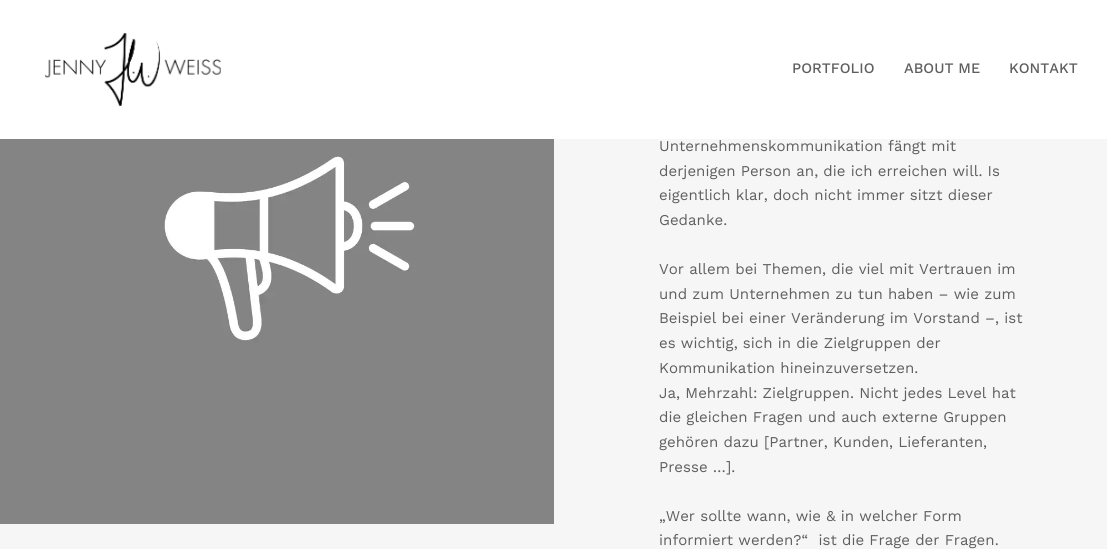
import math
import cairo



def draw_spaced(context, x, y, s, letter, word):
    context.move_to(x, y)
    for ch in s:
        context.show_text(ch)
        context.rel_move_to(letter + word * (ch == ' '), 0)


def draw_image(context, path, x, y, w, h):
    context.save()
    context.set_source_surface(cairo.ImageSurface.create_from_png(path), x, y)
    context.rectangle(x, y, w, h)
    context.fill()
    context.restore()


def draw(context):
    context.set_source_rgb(246 / 255, 246 / 255, 246 / 255)
    context.paint()
    context.set_source_rgb(1, 1, 1)
    context.rectangle(0, 0, 1107, 139)
    context.fill()
    draw_image(context, "images/1.png", 45, 33, 176, 73)
    draw_image(context, "images/2.png", 0, 139, 554, 385)
    draw_image(context, "images/3.png", 164, 156, 390, 368)
    context.select_font_face("Work Sans Medium")
    context.set_font_size(14.5)
    context.set_source_rgb(95 / 255, 95 / 255, 95 / 255)
    draw_spaced(context, 792, 73, "PORTFOLIO", 0.05, 0)
    draw_spaced(context, 904, 73, "ABOUT ME", 0.05, 0)
    draw_spaced(context, 1009, 73, "KONTAKT", 0.05, 0)
    context.select_font_face("Work Sans")
    context.set_font_size(15)
    draw_spaced(context, 659, 151, "Unternehmenskommunikation fängt mit", 0.05, 0)
    draw_spaced(context, 659, 176, "derjenigen Person an, die ich erreichen will. Is", 0.05, 0)
    draw_spaced(context, 659, 200, "eigentlich klar, doch nicht immer sitzt dieser", 0.05, 0)
    draw_spaced(context, 659, 225, "Gedanke.", 0.05, 0)
    draw_spaced(context, 659, 274, "Vor allem bei Themen, die viel mit Vertrauen im", 0.05, 0)
    draw_spaced(context, 659, 299, "und zum Unternehmen zu tun haben – wie zum", 0.05, 0)
    draw_spaced(context, 659, 323, "Beispiel bei einer Veränderung im Vorstand –, ist", 0.05, 0)
    draw_spaced(context, 659, 348, "es wichtig, sich in die Zielgruppen der", 0.05, 0)
    draw_spaced(context, 659, 373, "Kommunikation hineinzuversetzen.", 0.05, 0)
    draw_spaced(context, 659, 398, "Ja, Mehrzahl: Zielgruppen. Nicht jedes Level hat", 0.05, 0)
    draw_spaced(context, 659, 422, "die gleichen Fragen und auch externe Gruppen", 0.05, 0)
    draw_spaced(context, 659, 447, "gehören dazu [Partner, Kunden, Lieferanten,", 0.05, 0)
    draw_spaced(context, 659, 472, "Presse …].", 0.05, 0)
    draw_spaced(context, 659, 521, "„Wer sollte wann, wie & in welcher Form", 0.05, 0)
    draw_spaced(context, 659, 545, "informiert werden?“  ist die Frage der Fragen.", 0.05, 0)


surface = cairo.ImageSurface(cairo.Format.RGB24, 1107, 549)
context = cairo.Context(surface)
options = cairo.FontOptions()
options.set_hint_metrics(cairo.HintMetrics.OFF)
options.set_hint_style(cairo.HintStyle.NONE)
context.set_font_options(options)
context.set_miter_limit(4)
draw(context)
surface.write_to_png("out.png")
